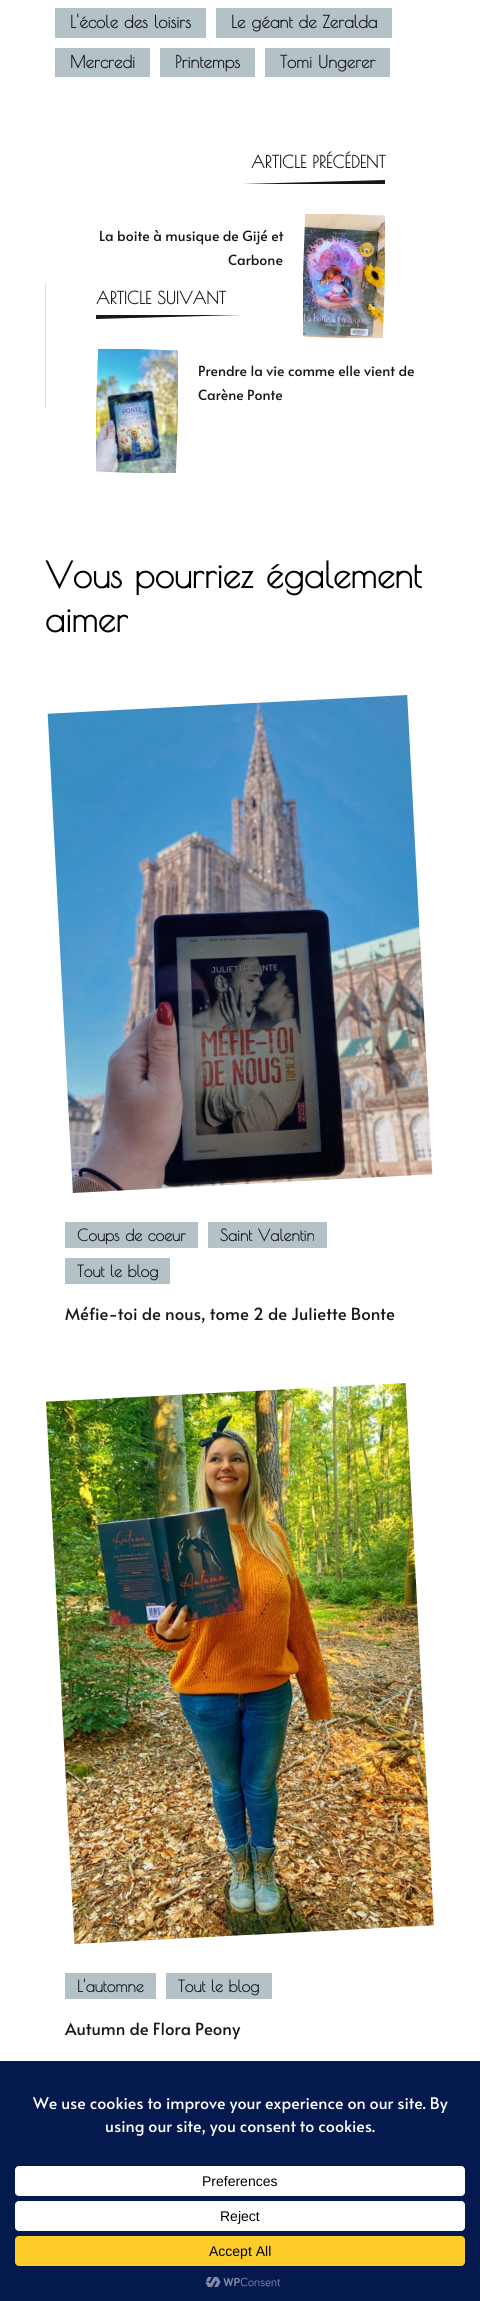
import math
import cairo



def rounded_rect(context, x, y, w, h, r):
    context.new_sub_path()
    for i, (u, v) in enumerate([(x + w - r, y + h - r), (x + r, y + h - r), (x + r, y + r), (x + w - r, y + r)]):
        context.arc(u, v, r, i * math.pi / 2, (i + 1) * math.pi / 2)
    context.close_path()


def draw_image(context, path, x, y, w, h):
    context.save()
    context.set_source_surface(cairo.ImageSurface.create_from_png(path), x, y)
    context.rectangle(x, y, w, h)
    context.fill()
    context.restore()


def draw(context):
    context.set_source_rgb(1, 1, 1)
    context.paint()
    context.set_source_rgb(180 / 255, 194 / 255, 200 / 255)
    context.rectangle(55, 8, 151, 30)
    context.fill()
    context.rectangle(216, 8, 176, 30)
    context.fill()
    context.rectangle(55, 48, 95, 29)
    context.fill()
    context.rectangle(160, 48, 95, 29)
    context.fill()
    context.rectangle(265, 48, 125, 29)
    context.fill()
    context.set_source_rgb(23 / 255, 23 / 255, 23 / 255)
    context.new_path()
    context.move_to(385, 184)
    context.line_to(241, 184)
    context.line_to(385, 180)
    context.close_path()
    context.fill()
    draw_image(context, "images/1.png", 303, 214, 82, 124)
    context.set_source_rgb(218 / 255, 225 / 255, 227 / 255)
    context.rectangle(45, 283, 1, 125)
    context.fill()
    context.set_source_rgb(23 / 255, 23 / 255, 23 / 255)
    context.new_path()
    context.move_to(96, 315)
    context.line_to(240, 315)
    context.line_to(96, 319)
    context.close_path()
    context.fill()
    draw_image(context, "images/2.png", 96, 349, 82, 124)
    draw_image(context, "images/3.png", 47, 695, 386, 498)
    context.set_source_rgb(180 / 255, 194 / 255, 200 / 255)
    context.rectangle(65, 1222, 133, 26)
    context.fill()
    context.rectangle(208, 1222, 119, 26)
    context.fill()
    context.rectangle(65, 1258, 105, 26)
    context.fill()
    draw_image(context, "images/4.png", 46, 1383, 388, 561)
    context.rectangle(65, 1973, 91, 26)
    context.fill()
    context.rectangle(166, 1973, 106, 26)
    context.fill()
    context.set_source_rgb(4 / 255, 25 / 255, 78 / 255)
    context.rectangle(0, 2061, 480, 240)
    context.fill()
    context.set_source_rgb(1, 1, 1)
    rounded_rect(context, 15, 2166, 450, 30, 4)
    context.fill()
    rounded_rect(context, 15, 2201, 450, 30, 4)
    context.fill()
    context.set_source_rgb(1, 205 / 255, 42 / 255)
    rounded_rect(context, 15, 2236, 450, 30, 4)
    context.fill()
    draw_image(context, "images/5.png", 205, 2277, 75, 11)
    context.select_font_face("Poiret One", cairo.FontSlant.NORMAL, cairo.FontWeight.BOLD)
    context.set_font_size(17)
    context.set_source_rgb(23 / 255, 23 / 255, 23 / 255)
    context.move_to(70, 28)
    context.show_text("L'école des loisirs")
    context.move_to(231, 28)
    context.show_text("Le géant de Zeralda")
    context.move_to(70, 68)
    context.show_text("Mercredi")
    context.move_to(175, 68)
    context.show_text("Printemps")
    context.move_to(280, 68)
    context.show_text("Tomi Ungerer")
    context.move_to(251, 168)
    context.show_text("ARTICLE PRÉCÉDENT")
    context.select_font_face("Alata")
    context.set_font_size(14)
    context.move_to(99, 241)
    context.show_text("La boite à musique de Gijé et")
    context.move_to(228, 265)
    context.show_text("Carbone")
    context.select_font_face("Poiret One", cairo.FontSlant.NORMAL, cairo.FontWeight.BOLD)
    context.set_font_size(17)
    context.move_to(96, 304)
    context.show_text("ARTICLE SUIVANT")
    context.select_font_face("Alata")
    context.set_font_size(14)
    context.move_to(198, 376)
    context.show_text("Prendre la vie comme elle vient de")
    context.move_to(198, 400)
    context.show_text("Carène Ponte")
    context.select_font_face("Poiret One", cairo.FontSlant.NORMAL, cairo.FontWeight.BOLD)
    context.set_font_size(35.4)
    context.set_source_rgb(0, 0, 0)
    context.move_to(45, 588)
    context.show_text("Vous pourriez également")
    context.move_to(45, 632)
    context.show_text("aimer")
    context.set_font_size(16)
    context.set_source_rgb(23 / 255, 23 / 255, 23 / 255)
    context.move_to(77, 1241)
    context.show_text("Coups de coeur")
    context.move_to(220, 1241)
    context.show_text("Saint Valentin")
    context.move_to(77, 1277)
    context.show_text("Tout le blog")
    context.select_font_face("Alata")
    context.set_font_size(16.75)
    context.move_to(65, 1320)
    context.show_text("Méfie-toi de nous, tome 2 de Juliette Bonte")
    context.select_font_face("Poiret One", cairo.FontSlant.NORMAL, cairo.FontWeight.BOLD)
    context.set_font_size(16)
    context.move_to(77, 1992)
    context.show_text("L'automne")
    context.move_to(178, 1992)
    context.show_text("Tout le blog")
    context.select_font_face("Alata")
    context.set_font_size(16.75)
    context.move_to(65, 2035)
    context.show_text("Autumn de Flora Peony")
    context.set_font_size(16)
    context.set_source_rgb(1, 1, 1)
    context.move_to(33, 2109)
    context.show_text("We use cookies to improve your experience on our site. By")
    context.move_to(105, 2132)
    context.show_text("using our site, you consent to cookies.")
    context.select_font_face("Liberation Sans")
    context.set_font_size(14)
    context.set_source_rgb(0, 0, 0)
    context.move_to(202, 2186)
    context.show_text("Preferences")
    context.move_to(220, 2221)
    context.show_text("Reject")
    context.move_to(209, 2256)
    context.show_text("Accept All")


surface = cairo.ImageSurface(cairo.Format.RGB24, 480, 2301)
context = cairo.Context(surface)
options = cairo.FontOptions()
options.set_hint_metrics(cairo.HintMetrics.OFF)
options.set_hint_style(cairo.HintStyle.NONE)
context.set_font_options(options)
context.set_miter_limit(4)
draw(context)
surface.write_to_png("out.png")
